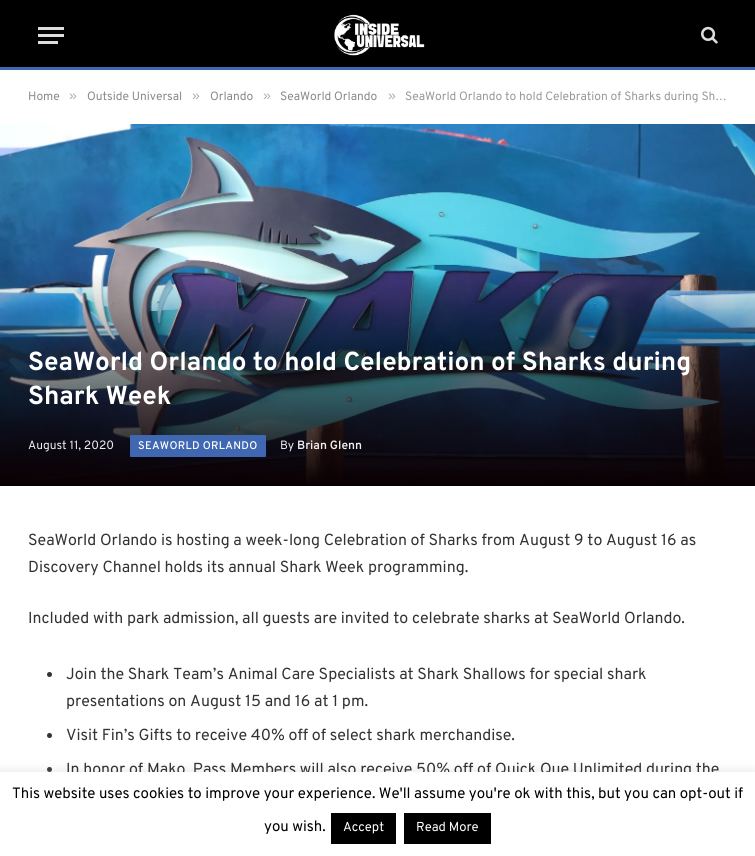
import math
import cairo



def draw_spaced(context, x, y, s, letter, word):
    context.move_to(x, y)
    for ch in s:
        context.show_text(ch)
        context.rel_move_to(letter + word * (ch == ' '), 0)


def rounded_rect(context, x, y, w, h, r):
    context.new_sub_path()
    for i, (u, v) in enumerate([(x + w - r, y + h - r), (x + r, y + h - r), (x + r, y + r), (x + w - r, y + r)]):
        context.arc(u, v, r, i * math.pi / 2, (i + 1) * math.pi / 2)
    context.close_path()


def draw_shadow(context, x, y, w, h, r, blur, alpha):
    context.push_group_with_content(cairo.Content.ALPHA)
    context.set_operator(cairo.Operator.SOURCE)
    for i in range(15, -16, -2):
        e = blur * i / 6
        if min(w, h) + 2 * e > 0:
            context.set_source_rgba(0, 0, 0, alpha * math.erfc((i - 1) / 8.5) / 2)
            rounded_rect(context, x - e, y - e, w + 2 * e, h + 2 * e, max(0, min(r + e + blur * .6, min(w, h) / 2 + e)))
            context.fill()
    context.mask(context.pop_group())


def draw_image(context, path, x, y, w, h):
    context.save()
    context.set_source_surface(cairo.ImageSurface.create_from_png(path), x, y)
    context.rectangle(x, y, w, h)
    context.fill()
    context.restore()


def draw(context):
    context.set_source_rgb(1, 1, 1)
    context.paint()
    context.set_source_rgb(0, 0, 0)
    context.rectangle(0, 0, 755, 67)
    context.fill()
    context.set_source_rgb(64 / 255, 104 / 255, 178 / 255)
    context.rectangle(0, 67, 755, 3)
    context.fill()
    context.set_source_rgb(221 / 255, 221 / 255, 221 / 255)
    context.rectangle(38, 41, 20, 3)
    context.fill()
    context.rectangle(38, 27, 26, 3)
    context.fill()
    context.rectangle(38, 34, 26, 3)
    context.fill()
    draw_image(context, "images/1.png", 334, 14, 91, 42)
    draw_image(context, "images/2.png", 701, 26, 17, 18)
    draw_image(context, "images/3.png", 0, 124, 755, 362)
    context.set_source_rgb(64 / 255, 104 / 255, 178 / 255)
    rounded_rect(context, 130, 435, 136, 22, 1)
    context.fill()
    context.set_source_rgb(51 / 255, 51 / 255, 51 / 255)
    context.arc(49.5, 674.5, 2.5, 0, 2 * math.pi)
    context.fill()
    context.arc(49.5, 735.5, 2.5, 0, 2 * math.pi)
    context.fill()
    context.arc(49.5, 769.5, 2.5, 0, 2 * math.pi)
    context.fill()
    context.set_source_rgb(172 / 255, 171 / 255, 171 / 255)
    draw_shadow(context, 0, 771, 755, 84, 0, 5, 0.3)
    context.select_font_face("Overpass")
    context.set_font_size(12)
    context.set_source_rgb(138 / 255, 138 / 255, 138 / 255)
    context.move_to(28, 100)
    context.show_text("Home")
    context.select_font_face("Liberation Sans")
    context.set_font_size(14)
    context.set_source_rgb(173 / 255, 173 / 255, 173 / 255)
    context.move_to(69, 100)
    context.show_text("»")
    context.select_font_face("Overpass")
    context.set_font_size(12)
    context.set_source_rgb(138 / 255, 138 / 255, 138 / 255)
    context.move_to(87, 100)
    context.show_text("Outside Universal")
    context.select_font_face("Liberation Sans")
    context.set_font_size(14)
    context.set_source_rgb(173 / 255, 173 / 255, 173 / 255)
    context.move_to(192, 100)
    context.show_text("»")
    context.select_font_face("Overpass")
    context.set_font_size(12)
    context.set_source_rgb(138 / 255, 138 / 255, 138 / 255)
    context.move_to(210, 100)
    context.show_text("Orlando")
    context.select_font_face("Liberation Sans")
    context.set_font_size(14)
    context.set_source_rgb(173 / 255, 173 / 255, 173 / 255)
    context.move_to(263, 100)
    context.show_text("»")
    context.select_font_face("Overpass")
    context.set_font_size(12)
    context.set_source_rgb(138 / 255, 138 / 255, 138 / 255)
    context.move_to(280, 100)
    context.show_text("SeaWorld Orlando")
    context.select_font_face("Liberation Sans")
    context.set_font_size(14)
    context.set_source_rgb(173 / 255, 173 / 255, 173 / 255)
    context.move_to(388, 100)
    context.show_text("»")
    context.select_font_face("Overpass")
    context.set_font_size(12)
    context.set_source_rgb(153 / 255, 153 / 255, 153 / 255)
    context.move_to(405, 100)
    context.show_text("SeaWorld Orlando to hold Celebration of Sharks during Sh…")
    context.select_font_face("Overpass", cairo.FontSlant.NORMAL, cairo.FontWeight.BOLD)
    context.set_font_size(26)
    context.set_source_rgb(1, 1, 1)
    context.move_to(28, 370)
    context.show_text("SeaWorld Orlando to hold Celebration of Sharks during")
    context.move_to(28, 404)
    context.show_text("Shark Week")
    context.select_font_face("Overpass")
    context.set_font_size(12)
    context.set_source_rgb(238 / 255, 238 / 255, 238 / 255)
    context.move_to(28, 449)
    context.show_text("August 11, 2020")
    context.select_font_face("Overpass Medium")
    context.set_font_size(11)
    context.set_source_rgb(1, 1, 1)
    draw_spaced(context, 138, 449, "SEAWORLD ORLANDO", 0.3, 0)
    context.select_font_face("Overpass")
    context.set_font_size(12)
    context.set_source_rgb(238 / 255, 238 / 255, 238 / 255)
    context.move_to(280, 449)
    context.show_text("By")
    context.select_font_face("Overpass SemiBold")
    context.move_to(297, 449)
    context.show_text("Brian Glenn")
    context.select_font_face("Overpass")
    context.set_font_size(15.95)
    context.set_source_rgb(51 / 255, 51 / 255, 51 / 255)
    context.move_to(28, 545)
    context.show_text("SeaWorld Orlando is hosting a week-long Celebration of Sharks from August 9 to August 16 as")
    context.move_to(28, 572)
    context.show_text("Discovery Channel holds its annual Shark Week programming.")
    context.move_to(28, 623)
    context.show_text("Included with park admission, all guests are invited to celebrate sharks at SeaWorld Orlando.")
    context.move_to(66, 679)
    context.show_text("Join the Shark Team’s Animal Care Specialists at Shark Shallows for special shark")
    context.move_to(66, 706)
    context.show_text("presentations on August 15 and 16 at 1 pm.")
    context.move_to(66, 740)
    context.show_text("Visit Fin’s Gifts to receive 40% off of select shark merchandise.")
    context.move_to(66, 774)
    context.show_text("In honor of Mako, Pass Members will also receive 50% off of Quick Que Unlimited during the")
    context.set_source_rgb(1, 1, 1)
    context.rectangle(0, 772, 755, 84)
    context.fill()
    context.set_font_size(15)
    context.set_source_rgb(0, 0, 0)
    context.move_to(12, 798)
    context.show_text("This website uses cookies to improve your experience. We'll assume you're ok with this, but you can opt-out if")
    context.move_to(264, 831)
    context.show_text("you wish.")
    context.rectangle(331, 813, 65, 31)
    context.fill()
    context.set_font_size(13)
    context.set_source_rgb(1, 1, 1)
    context.move_to(343, 831)
    context.show_text("Accept")
    context.set_source_rgb(0, 0, 0)
    context.rectangle(404, 813, 87, 31)
    context.fill()
    context.set_source_rgb(1, 1, 1)
    context.move_to(416, 831)
    context.show_text("Read More")


surface = cairo.ImageSurface(cairo.Format.RGB24, 755, 856)
context = cairo.Context(surface)
options = cairo.FontOptions()
options.set_hint_metrics(cairo.HintMetrics.OFF)
options.set_hint_style(cairo.HintStyle.NONE)
context.set_font_options(options)
context.set_miter_limit(4)
draw(context)
surface.write_to_png("out.png")
